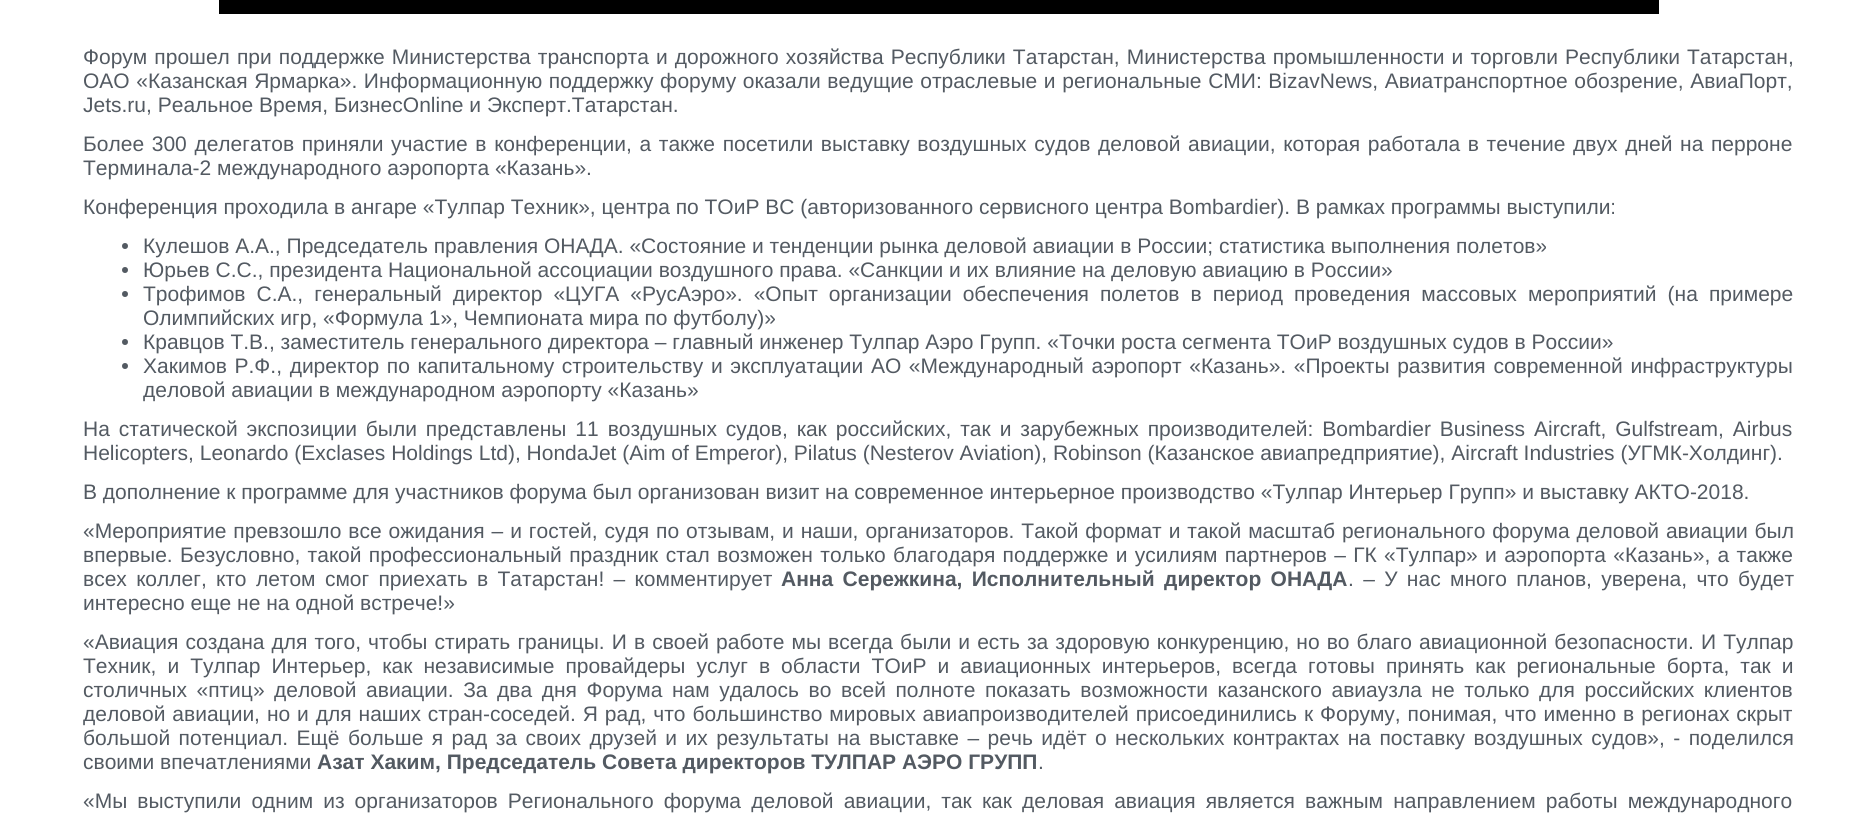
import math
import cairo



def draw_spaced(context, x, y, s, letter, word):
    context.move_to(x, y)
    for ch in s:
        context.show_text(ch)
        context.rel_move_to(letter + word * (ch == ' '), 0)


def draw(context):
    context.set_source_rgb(1, 1, 1)
    context.paint()
    context.set_source_rgb(0, 0, 0)
    context.rectangle(219, 0, 1440, 14)
    context.fill()
    context.set_source_rgb(83 / 255, 90 / 255, 98 / 255)
    context.arc(125, 246, 3, 0, 2 * math.pi)
    context.fill()
    context.arc(125, 270, 3, 0, 2 * math.pi)
    context.fill()
    context.arc(125, 294, 3, 0, 2 * math.pi)
    context.fill()
    context.arc(125, 342, 3, 0, 2 * math.pi)
    context.fill()
    context.arc(125, 366, 3, 0, 2 * math.pi)
    context.fill()
    context.select_font_face("Liberation Sans")
    context.set_font_size(21)
    draw_spaced(context, 83, 64, "Форум прошел при поддержке Министерства транспорта и дорожного хозяйства Республики Татарстан, Министерства промышленности и торговли Республики Татарстан,", 0, 1.25)
    draw_spaced(context, 83, 88, "ОАО «Казанская Ярмарка». Информационную поддержку форуму оказали ведущие отраслевые и региональные СМИ: BizavNews, Авиатранспортное обозрение, АвиаПорт,", 0, 0.8)
    context.move_to(83, 112)
    context.show_text("Jets.ru, Реальное Время, БизнесOnline и Эксперт.Татарстан.")
    draw_spaced(context, 83, 151, "Более 300 делегатов приняли участие в конференции, а также посетили выставку воздушных судов деловой авиации, которая работала в течение двух дней на перроне", 0, 1.8)
    context.move_to(83, 175)
    context.show_text("Терминала-2 международного аэропорта «Казань».")
    context.move_to(83, 214)
    context.show_text("Конференция проходила в ангаре «Тулпар Техник», центра по ТОиР ВС (авторизованного сервисного центра Bombardier). В рамках программы выступили:")
    context.move_to(143, 253)
    context.show_text("Кулешов А.А., Председатель правления ОНАДА. «Состояние и тенденции рынка деловой авиации в России; статистика выполнения полетов»")
    context.move_to(143, 277)
    context.show_text("Юрьев С.С., президента Национальной ассоциации воздушного права. «Санкции и их влияние на деловую авиацию в России»")
    draw_spaced(context, 143, 301, "Трофимов С.А., генеральный директор «ЦУГА «РусАэро». «Опыт организации обеспечения полетов в период проведения массовых мероприятий (на примере", 0, 5.2)
    context.move_to(143, 325)
    context.show_text("Олимпийских игр, «Формула 1», Чемпионата мира по футболу)»")
    context.move_to(143, 349)
    context.show_text("Кравцов Т.В., заместитель генерального директора – главный инженер Тулпар Аэро Групп. «Точки роста сегмента ТОиР воздушных судов в России»")
    draw_spaced(context, 143, 373, "Хакимов Р.Ф., директор по капитальному строительству и эксплуатации АО «Международный аэропорт «Казань». «Проекты развития современной инфраструктуры", 0, 1.8)
    context.move_to(143, 397)
    context.show_text("деловой авиации в международном аэропорту «Казань»")
    draw_spaced(context, 83, 436, "На статической экспозиции были представлены 11 воздушных судов, как российских, так и зарубежных производителей: Bombardier Business Aircraft, Gulfstream, Airbus", 0, 3.1)
    context.move_to(83, 460)
    context.show_text("Helicopters, Leonardo (Exclases Holdings Ltd), HondaJet (Aim of Emperor), Pilatus (Nesterov Aviation), Robinson (Казанское авиапредприятие), Aircraft Industries (УГМК-Холдинг).")
    context.move_to(83, 499)
    context.show_text("В дополнение к программе для участников форума был организован визит на современное интерьерное производство «Тулпар Интерьер Групп» и выставку АКТО-2018.")
    draw_spaced(context, 83, 538, "«Мероприятие превзошло все ожидания – и гостей, судя по отзывам, и наши, организаторов. Такой формат и такой масштаб регионального форума деловой авиации был", 0, 1.1)
    draw_spaced(context, 83, 562, "впервые. Безусловно, такой профессиональный праздник стал возможен только благодаря поддержке и усилиям партнеров – ГК «Тулпар» и аэропорта «Казань», а также", 0, 1.5)
    draw_spaced(context, 83, 586, "всех коллег, кто летом смог приехать в Татарстан! – комментирует", 0, 3.5)
    context.select_font_face("Liberation Sans", cairo.FontSlant.NORMAL, cairo.FontWeight.BOLD)
    draw_spaced(context, 781, 586, "Анна Сережкина, Исполнительный директор ОНАДА", 0, 3.5)
    context.select_font_face("Liberation Sans")
    draw_spaced(context, 1348, 586, ". – У нас много планов, уверена, что будет", 0, 3.5)
    context.move_to(83, 610)
    context.show_text("интересно еще не на одной встрече!»")
    draw_spaced(context, 83, 649, "«Авиация создана для того, чтобы стирать границы. И в своей работе мы всегда были и есть за здоровую конкуренцию, но во благо авиационной безопасности. И Тулпар", 0, 1.25)
    draw_spaced(context, 83, 673, "Техник, и Тулпар Интерьер, как независимые провайдеры услуг в области ТОиР и авиационных интерьеров, всегда готовы принять как региональные борта, так и", 0, 5.2)
    draw_spaced(context, 83, 697, "столичных «птиц» деловой авиации. За два дня Форума нам удалось во всей полноте показать возможности казанского авиаузла не только для российских клиентов", 0, 3.7)
    draw_spaced(context, 83, 721, "деловой авиации, но и для наших стран-соседей. Я рад, что большинство мировых авиапроизводителей присоединились к Форуму, понимая, что именно в регионах скрыт", 0, 1.1)
    draw_spaced(context, 83, 745, "большой потенциал. Ещё больше я рад за своих друзей и их результаты на выставке – речь идёт о нескольких контрактах на поставку воздушных судов», - поделился", 0, 2.6)
    context.move_to(83, 769)
    context.show_text("своими впечатлениями")
    context.select_font_face("Liberation Sans", cairo.FontSlant.NORMAL, cairo.FontWeight.BOLD)
    context.move_to(317, 769)
    context.show_text("Азат Хаким, Председатель Совета директоров ТУЛПАР АЭРО ГРУПП")
    context.select_font_face("Liberation Sans")
    context.move_to(1038, 769)
    context.show_text(".")
    draw_spaced(context, 83, 808, "«Мы выступили одним из организаторов Регионального форума деловой авиации, так как деловая авиация является важным направлением работы международного", 0, 4.25)


surface = cairo.ImageSurface(cairo.Format.RGB24, 1876, 821)
context = cairo.Context(surface)
options = cairo.FontOptions()
options.set_hint_metrics(cairo.HintMetrics.OFF)
options.set_hint_style(cairo.HintStyle.NONE)
context.set_font_options(options)
context.set_miter_limit(4)
draw(context)
surface.write_to_png("out.png")
